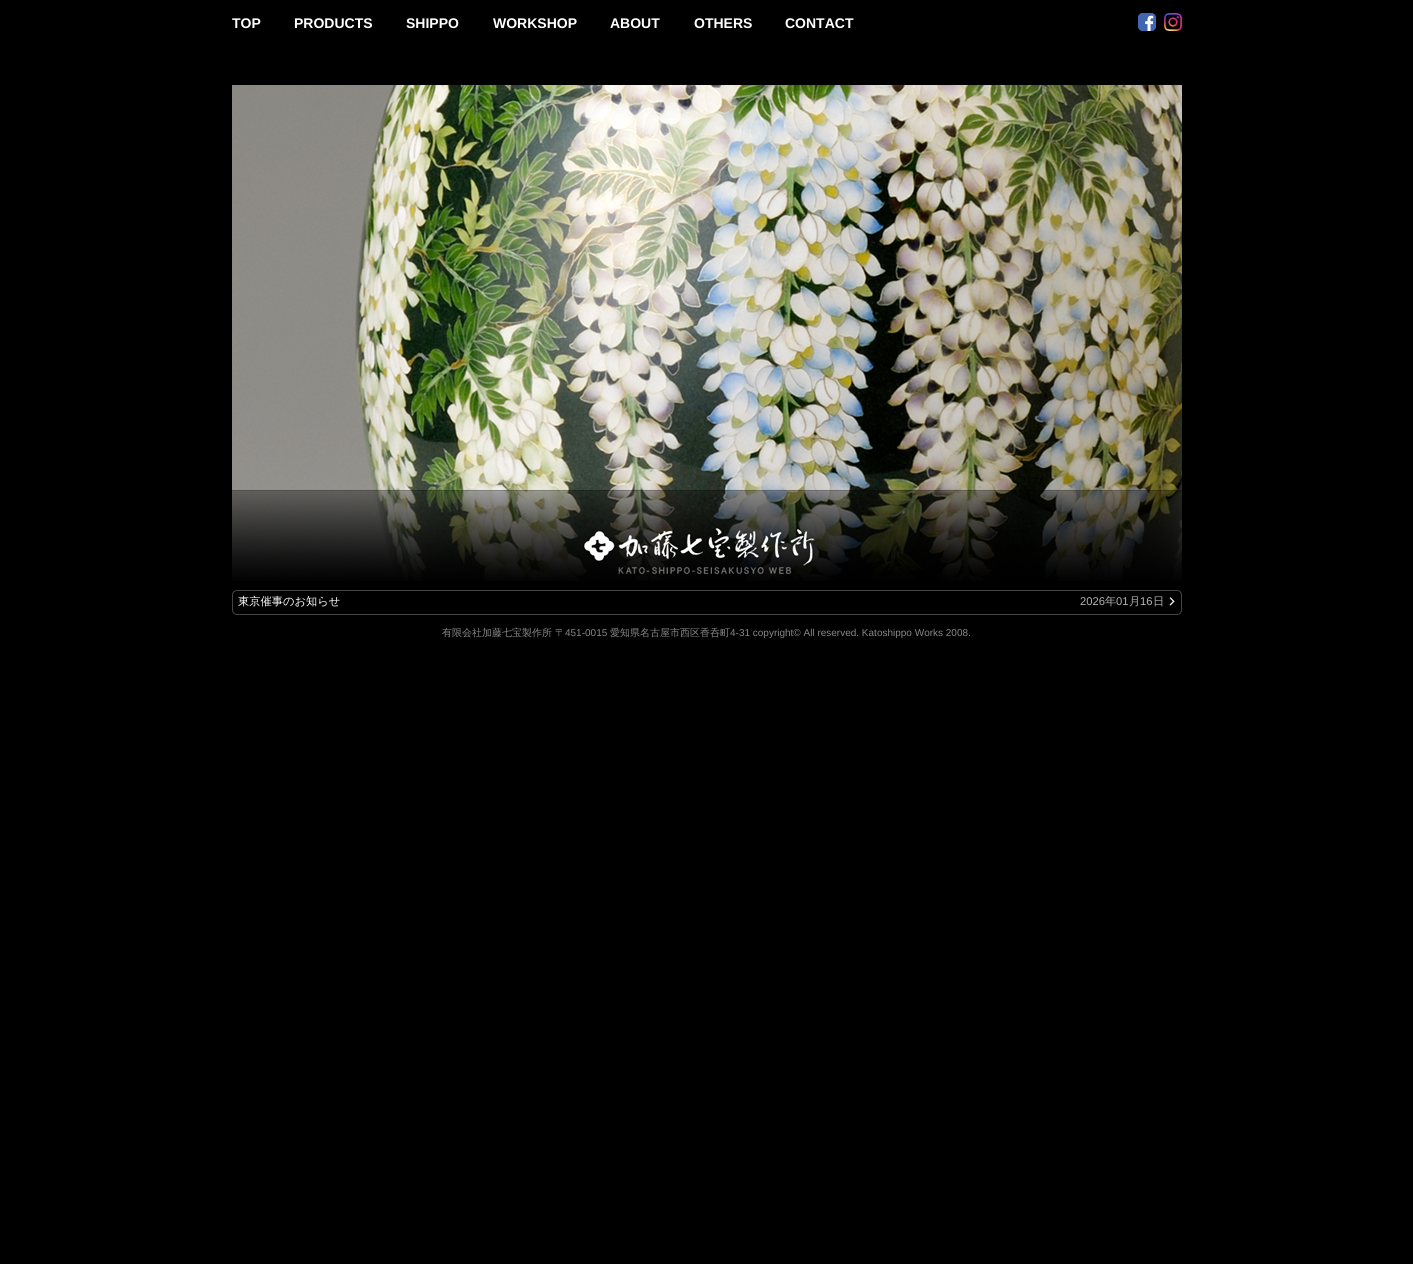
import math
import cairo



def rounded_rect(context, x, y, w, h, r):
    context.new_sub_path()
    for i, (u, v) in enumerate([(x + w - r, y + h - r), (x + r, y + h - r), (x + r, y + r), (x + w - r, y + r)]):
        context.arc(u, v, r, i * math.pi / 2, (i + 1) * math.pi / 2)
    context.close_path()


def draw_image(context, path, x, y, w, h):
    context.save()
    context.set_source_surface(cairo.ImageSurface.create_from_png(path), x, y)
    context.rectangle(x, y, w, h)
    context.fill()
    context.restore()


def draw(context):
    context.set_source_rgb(0, 0, 0)
    context.paint()
    draw_image(context, "images/1.png", 1138, 13, 18, 18)
    draw_image(context, "images/2.png", 1164, 13, 18, 18)
    draw_image(context, "images/3.png", 232, 85, 950, 496)
    rounded_rect(context, 232.5, 590.5, 949, 24, 4.5)
    context.set_source_rgb(68 / 255, 68 / 255, 68 / 255)
    context.set_line_width(1)
    context.stroke()
    context.select_font_face("Liberation Sans", cairo.FontSlant.NORMAL, cairo.FontWeight.BOLD)
    context.set_font_size(14)
    context.set_source_rgb(1, 1, 1)
    context.move_to(232, 28)
    context.show_text("TOP")
    context.move_to(294, 28)
    context.show_text("PRODUCTS")
    context.move_to(406, 28)
    context.show_text("SHIPPO")
    context.move_to(493, 28)
    context.show_text("WORKSHOP")
    context.move_to(610, 28)
    context.show_text("ABOUT")
    context.move_to(694, 28)
    context.show_text("OTHERS")
    context.move_to(785, 28)
    context.show_text("CONTACT")
    context.select_font_face("WenQuanYi Zen Hei Medium")
    context.set_font_size(11.25)
    context.move_to(238, 605)
    context.show_text("東京催事のお知らせ")
    context.select_font_face("Liberation Sans")
    context.set_source_rgb(179 / 255, 179 / 255, 179 / 255)
    context.move_to(1080, 605)
    context.show_text("2026")
    context.select_font_face("WenQuanYi Zen Hei Medium")
    context.move_to(1105, 605)
    context.show_text("年")
    context.select_font_face("Liberation Sans")
    context.move_to(1116, 605)
    context.show_text("01")
    context.select_font_face("WenQuanYi Zen Hei Medium")
    context.move_to(1129, 605)
    context.show_text("月")
    context.select_font_face("Liberation Sans")
    context.move_to(1140, 605)
    context.show_text("16")
    context.select_font_face("WenQuanYi Zen Hei Medium")
    context.move_to(1153, 605)
    context.show_text("日")
    context.select_font_face("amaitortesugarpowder")
    context.set_source_rgb(1, 1, 1)
    context.move_to(1166, 607)
    context.show_text("＞")
    context.select_font_face("WenQuanYi Zen Hei Medium")
    context.set_font_size(10)
    context.set_source_rgb(136 / 255, 136 / 255, 136 / 255)
    context.move_to(442, 636)
    context.show_text("有限会社加藤七宝製作所 〒")
    context.select_font_face("Liberation Sans")
    context.move_to(565, 636)
    context.show_text("451-0015")
    context.select_font_face("WenQuanYi Zen Hei Medium")
    context.move_to(610, 636)
    context.show_text("愛知県名古屋市西区香呑町")
    context.select_font_face("Liberation Sans")
    context.move_to(730, 636)
    context.show_text("4-31 copyright© All reserved. Katoshippo Works 2008.")


surface = cairo.ImageSurface(cairo.Format.RGB24, 1413, 1264)
context = cairo.Context(surface)
options = cairo.FontOptions()
options.set_hint_metrics(cairo.HintMetrics.OFF)
options.set_hint_style(cairo.HintStyle.NONE)
context.set_font_options(options)
context.set_miter_limit(4)
draw(context)
surface.write_to_png("out.png")
